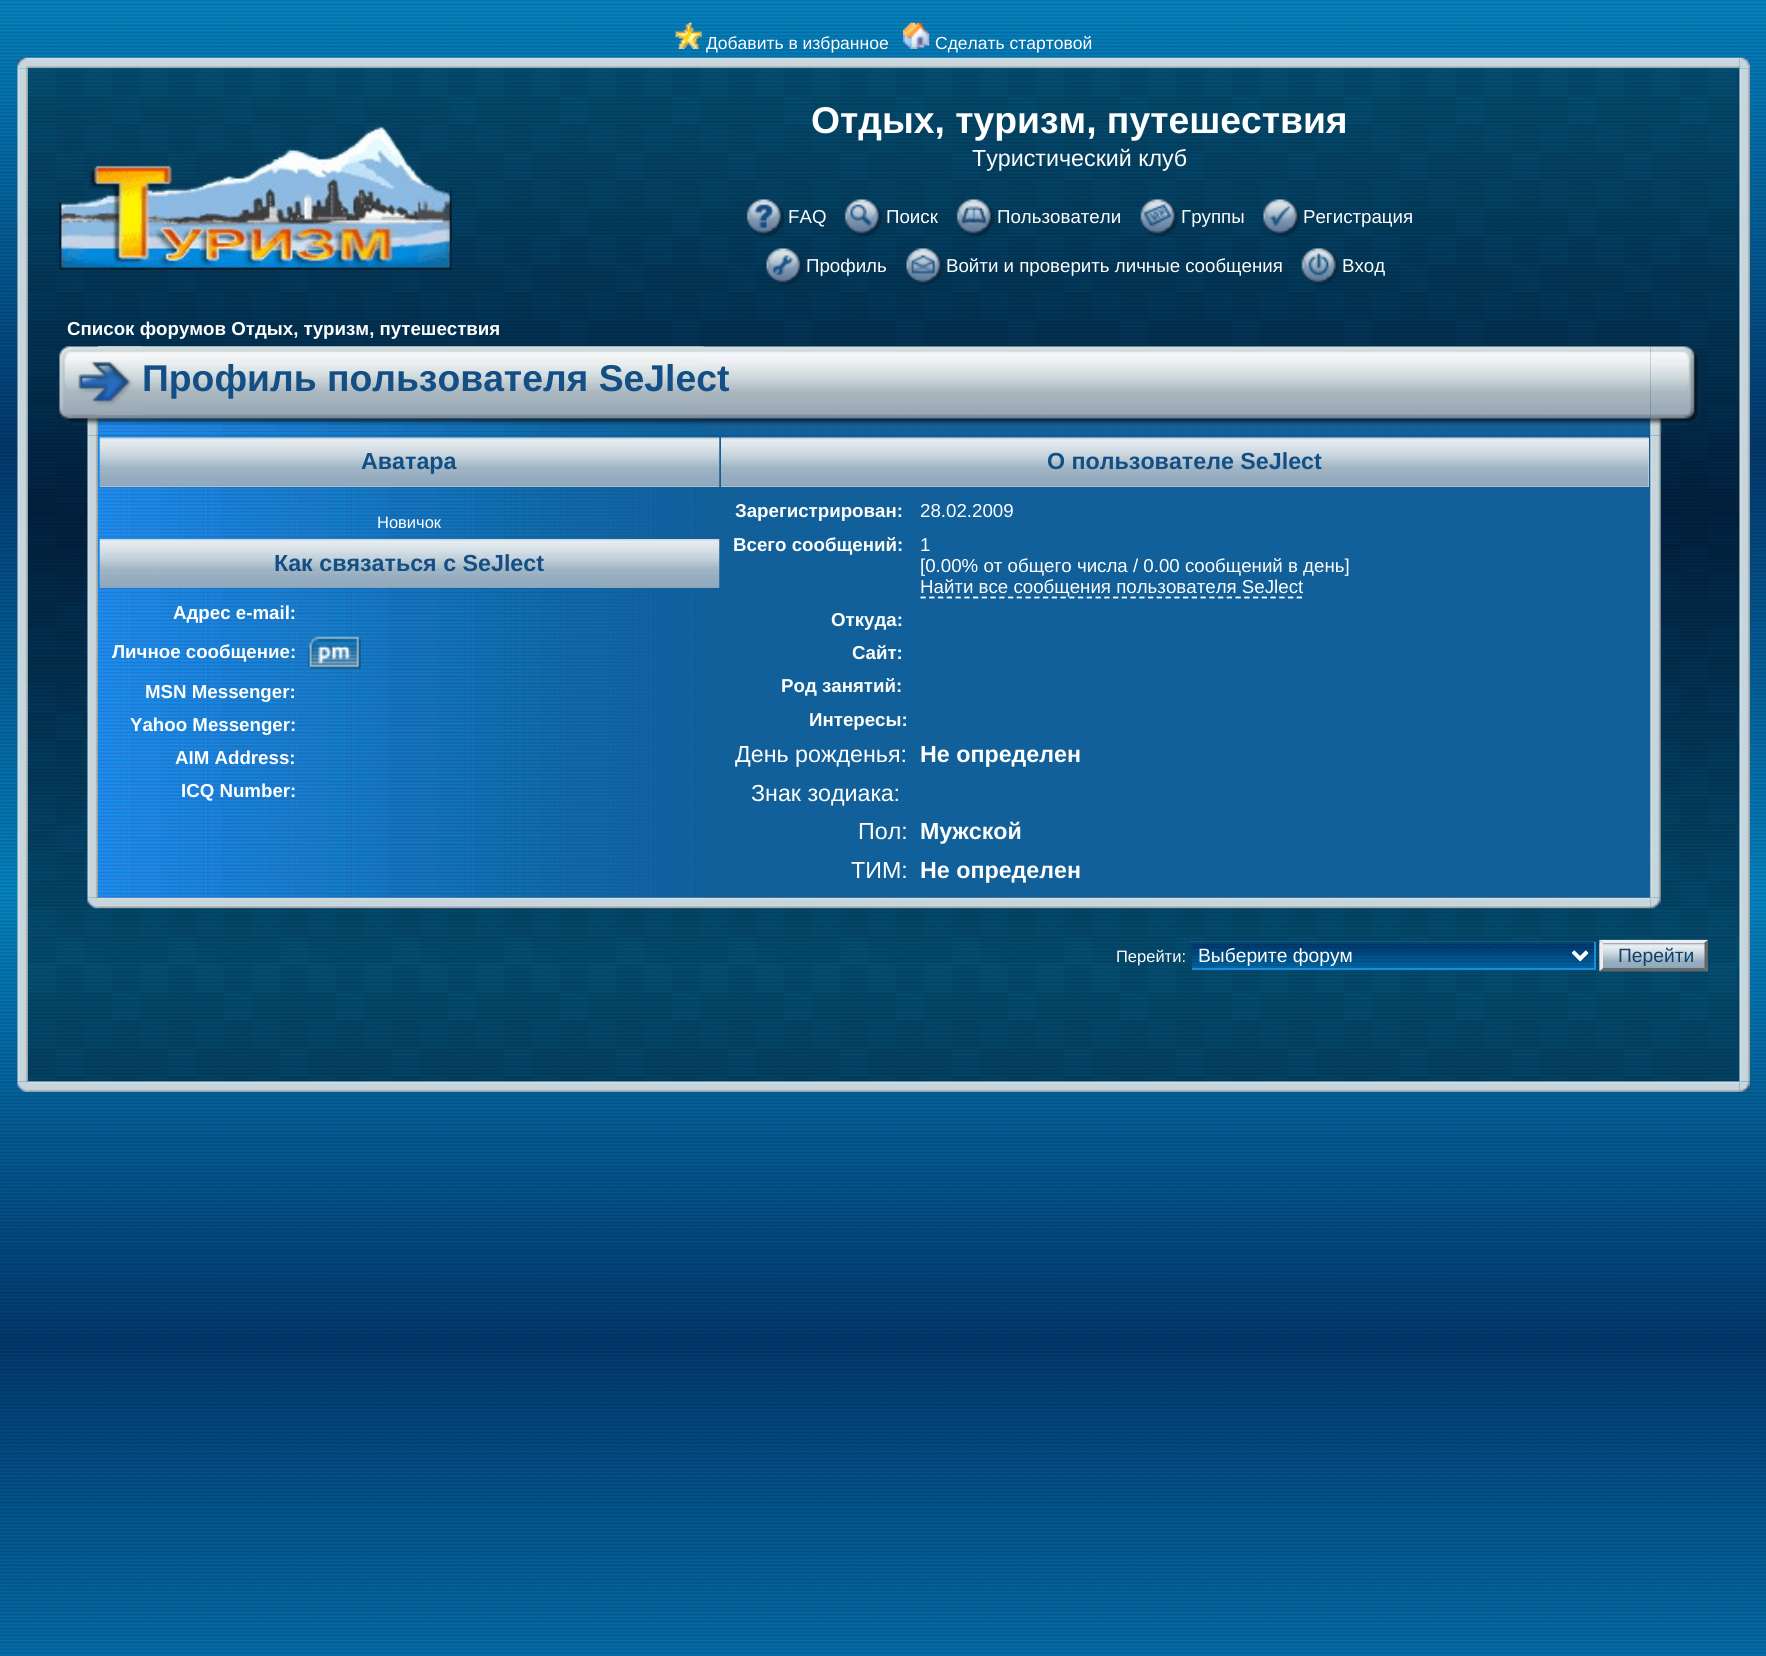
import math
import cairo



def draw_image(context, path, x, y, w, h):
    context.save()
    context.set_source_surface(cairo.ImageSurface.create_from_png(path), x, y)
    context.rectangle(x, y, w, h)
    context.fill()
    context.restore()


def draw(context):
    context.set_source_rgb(1, 1, 1)
    context.paint()
    draw_image(context, "images/1.png", 0, 0, 1766, 1656)
    draw_image(context, "images/2.png", 675, 22, 27, 27)
    draw_image(context, "images/3.png", 903, 22, 27, 27)
    draw_image(context, "images/4.png", 17, 57, 11, 12)
    draw_image(context, "images/5.png", 28, 57, 1712, 12)
    draw_image(context, "images/6.png", 1739, 57, 11, 12)
    draw_image(context, "images/7.png", 17, 68, 11, 1014)
    draw_image(context, "images/8.png", 28, 68, 1712, 1014)
    draw_image(context, "images/9.png", 59, 102, 393, 168)
    draw_image(context, "images/10.png", 746, 199, 38, 38)
    draw_image(context, "images/11.png", 844, 199, 38, 37)
    draw_image(context, "images/12.png", 956, 199, 38, 37)
    draw_image(context, "images/13.png", 1140, 199, 38, 38)
    draw_image(context, "images/14.png", 1263, 199, 38, 38)
    draw_image(context, "images/15.png", 766, 248, 38, 37)
    draw_image(context, "images/16.png", 906, 248, 38, 37)
    draw_image(context, "images/17.png", 1301, 248, 38, 37)
    draw_image(context, "images/23.png", 87, 435, 11, 463)
    draw_image(context, "images/18.png", 59, 346, 39, 90)
    draw_image(context, "images/19.png", 98, 346, 1553, 90)
    draw_image(context, "images/20.png", 98, 346, 606, 90)
    draw_image(context, "images/21.png", 98, 346, 44, 69)
    draw_image(context, "images/24.png", 98, 435, 1553, 463)
    draw_image(context, "images/30.png", 1650, 435, 11, 463)
    draw_image(context, "images/22.png", 1650, 346, 51, 90)
    draw_image(context, "images/25.png", 98, 435, 606, 463)
    context.set_source_rgb(221 / 255, 221 / 255, 221 / 255)
    context.rectangle(100, 486, 619, 1)
    context.fill()
    draw_image(context, "images/26.png", 99, 437, 621, 50)
    context.rectangle(721, 438, 928, 49)
    context.fill()
    draw_image(context, "images/27.png", 721, 437, 928, 50)
    context.new_path()
    context.move_to(920.5, 597.5)
    context.line_to(1302, 597.5)
    context.set_source_rgb(1, 1, 1)
    context.set_line_width(1.8)
    context.set_dash([5.25, 3.5])
    context.stroke()
    draw_image(context, "images/28.png", 99, 539, 621, 49)
    draw_image(context, "images/29.png", 308, 636, 53, 33)
    draw_image(context, "images/31.png", 87, 897, 11, 12)
    draw_image(context, "images/32.png", 98, 897, 1553, 12)
    draw_image(context, "images/33.png", 1650, 897, 11, 12)
    draw_image(context, "images/34.png", 1190, 941, 406, 27)
    context.set_source_rgb(13 / 255, 66 / 255, 103 / 255)
    context.rectangle(1190, 942, 406, 2)
    context.fill()
    context.set_source_rgb(23 / 255, 141 / 255, 223 / 255)
    context.rectangle(1594, 942, 2, 28)
    context.fill()
    context.rectangle(1190, 968, 406, 2)
    context.fill()
    context.set_source_rgb(13 / 255, 66 / 255, 103 / 255)
    context.rectangle(1190, 942, 2, 28)
    context.fill()
    context.new_path()
    context.move_to(1573, 951.5)
    context.line_to(1580, 958.5)
    context.line_to(1587, 951.5)
    context.set_source_rgb(1, 1, 1)
    context.set_line_width(3.5)
    context.set_dash([])
    context.stroke()
    draw_image(context, "images/35.png", 1599, 939, 109, 33)
    context.set_source_rgb(238 / 255, 238 / 255, 238 / 255)
    context.new_path()
    context.move_to(1600, 940)
    context.line_to(1708, 940)
    context.line_to(1704, 943)
    context.line_to(1603, 943)
    context.close_path()
    context.fill()
    context.set_source_rgb(102 / 255, 102 / 255, 102 / 255)
    context.new_path()
    context.move_to(1708, 940)
    context.line_to(1708, 971)
    context.line_to(1704.5, 968)
    context.line_to(1704.5, 943)
    context.close_path()
    context.fill()
    context.new_path()
    context.move_to(1708, 971)
    context.line_to(1600, 971)
    context.line_to(1603, 968)
    context.line_to(1704, 968)
    context.close_path()
    context.fill()
    context.set_source_rgb(238 / 255, 238 / 255, 238 / 255)
    context.new_path()
    context.move_to(1599.5, 971)
    context.line_to(1599.5, 940)
    context.line_to(1603, 943)
    context.line_to(1603, 968)
    context.close_path()
    context.fill()
    draw_image(context, "images/36.png", 1739, 68, 11, 1014)
    draw_image(context, "images/37.png", 17, 1081, 11, 11)
    draw_image(context, "images/38.png", 28, 1081, 1712, 11)
    draw_image(context, "images/39.png", 1739, 1081, 11, 11)
    context.select_font_face("Liberation Sans")
    context.set_font_size(17.5)
    context.set_source_rgb(1, 1, 1)
    context.move_to(706, 49)
    context.show_text("Добавить в избранное")
    context.move_to(935, 49)
    context.show_text("Сделать стартовой")
    context.select_font_face("Liberation Sans", cairo.FontSlant.NORMAL, cairo.FontWeight.BOLD)
    context.set_font_size(37.3)
    context.move_to(811, 133)
    context.show_text("Отдых, туризм, путешествия")
    context.select_font_face("Liberation Sans")
    context.set_font_size(23.25)
    context.move_to(972, 166)
    context.show_text("Туристический клуб")
    context.set_font_size(18.7)
    context.move_to(788, 223)
    context.show_text("FAQ")
    context.move_to(886, 223)
    context.show_text("Поиск")
    context.move_to(997, 223)
    context.show_text("Пользователи")
    context.move_to(1181, 223)
    context.show_text("Группы")
    context.move_to(1303, 223)
    context.show_text("Регистрация")
    context.move_to(806, 272)
    context.show_text("Профиль")
    context.move_to(946, 272)
    context.show_text("Войти и проверить личные сообщения")
    context.move_to(1342, 272)
    context.show_text("Вход")
    context.select_font_face("Liberation Sans", cairo.FontSlant.NORMAL, cairo.FontWeight.BOLD)
    context.move_to(67, 335)
    context.show_text("Список форумов Отдых, туризм, путешествия")
    context.set_font_size(37.3)
    context.set_source_rgb(19 / 255, 79 / 255, 132 / 255)
    context.move_to(142, 391)
    context.show_text("Профиль пользователя SeJlect")
    context.set_font_size(23.25)
    context.move_to(361, 469)
    context.show_text("Аватара")
    context.move_to(1047, 469)
    context.show_text("О пользователе SeJlect")
    context.select_font_face("Liberation Sans")
    context.set_font_size(16.5)
    context.set_source_rgb(1, 1, 1)
    context.move_to(377, 528)
    context.show_text("Новичок")
    context.select_font_face("Liberation Sans", cairo.FontSlant.NORMAL, cairo.FontWeight.BOLD)
    context.set_font_size(18.7)
    context.move_to(735, 517)
    context.show_text("Зарегистрирован:")
    context.select_font_face("Liberation Sans")
    context.move_to(920, 517)
    context.show_text("28.02.2009")
    context.select_font_face("Liberation Sans", cairo.FontSlant.NORMAL, cairo.FontWeight.BOLD)
    context.move_to(733, 551)
    context.show_text("Всего сообщений:")
    context.select_font_face("Liberation Sans")
    context.move_to(920, 551)
    context.show_text("1")
    context.move_to(920, 572)
    context.show_text("[0.00% от общего числа / 0.00 сообщений в день]")
    context.move_to(920, 593)
    context.show_text("Найти все сообщения пользователя SeJlect")
    context.select_font_face("Liberation Sans", cairo.FontSlant.NORMAL, cairo.FontWeight.BOLD)
    context.move_to(831, 626)
    context.show_text("Откуда:")
    context.move_to(852, 659)
    context.show_text("Сайт:")
    context.move_to(781, 692)
    context.show_text("Род занятий:")
    context.move_to(809, 726)
    context.show_text("Интересы:")
    context.select_font_face("Liberation Sans")
    context.set_font_size(23.25)
    context.move_to(735, 762)
    context.show_text("День рожденья:")
    context.select_font_face("Liberation Sans", cairo.FontSlant.NORMAL, cairo.FontWeight.BOLD)
    context.move_to(920, 762)
    context.show_text("Не определен")
    context.select_font_face("Liberation Sans")
    context.move_to(751, 801)
    context.show_text("Знак зодиака:")
    context.move_to(858, 839)
    context.show_text("Пол:")
    context.select_font_face("Liberation Sans", cairo.FontSlant.NORMAL, cairo.FontWeight.BOLD)
    context.move_to(920, 839)
    context.show_text("Мужской")
    context.select_font_face("Liberation Sans")
    context.move_to(851, 878)
    context.show_text("ТИМ:")
    context.select_font_face("Liberation Sans", cairo.FontSlant.NORMAL, cairo.FontWeight.BOLD)
    context.move_to(920, 878)
    context.show_text("Не определен")
    context.set_source_rgb(19 / 255, 79 / 255, 132 / 255)
    context.move_to(274, 571)
    context.show_text("Как связаться с SeJlect")
    context.set_font_size(18.7)
    context.set_source_rgb(1, 1, 1)
    context.move_to(173, 619)
    context.show_text("Адрес e-mail:")
    context.move_to(112, 658)
    context.show_text("Личное сообщение:")
    context.move_to(145, 698)
    context.show_text("MSN Messenger:")
    context.move_to(130, 731)
    context.show_text("Yahoo Messenger:")
    context.move_to(175, 764)
    context.show_text("AIM Address:")
    context.move_to(181, 797)
    context.show_text("ICQ Number:")
    context.select_font_face("Liberation Sans")
    context.set_font_size(16.5)
    context.move_to(1116, 962)
    context.show_text("Перейти:")
    context.set_font_size(19.25)
    context.move_to(1198, 962)
    context.show_text("Выберите форум")
    context.set_source_rgb(13 / 255, 64 / 255, 106 / 255)
    context.move_to(1618, 962)
    context.show_text("Перейти")


surface = cairo.ImageSurface(cairo.Format.RGB24, 1766, 1656)
context = cairo.Context(surface)
options = cairo.FontOptions()
options.set_hint_metrics(cairo.HintMetrics.OFF)
options.set_hint_style(cairo.HintStyle.NONE)
context.set_font_options(options)
context.set_miter_limit(4)
draw(context)
surface.write_to_png("out.png")
